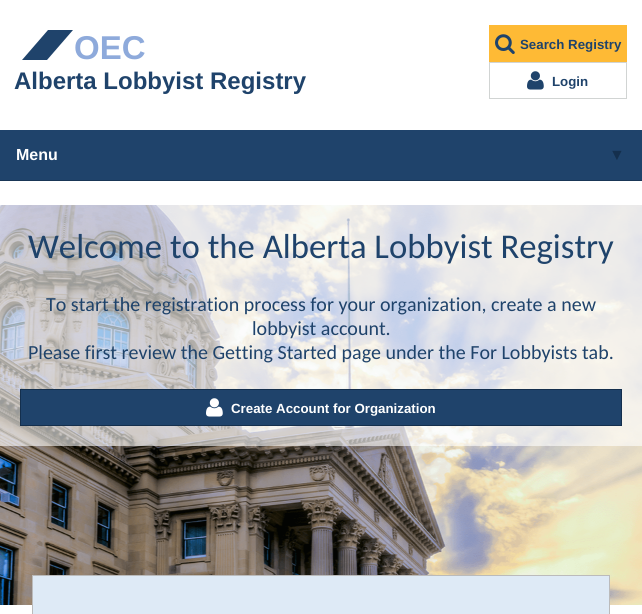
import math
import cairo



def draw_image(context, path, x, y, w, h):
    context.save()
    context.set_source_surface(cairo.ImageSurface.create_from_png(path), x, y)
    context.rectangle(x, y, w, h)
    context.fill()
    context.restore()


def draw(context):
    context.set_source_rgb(1, 1, 1)
    context.paint()
    context.set_source_rgb(31 / 255, 67 / 255, 107 / 255)
    context.new_path()
    context.move_to(48, 30)
    context.line_to(73, 30)
    context.line_to(47, 60)
    context.line_to(22, 60)
    context.close_path()
    context.fill()
    context.set_source_rgb(254 / 255, 186 / 255, 53 / 255)
    context.rectangle(489.5, 25.5, 137, 36)
    context.fill_preserve()
    context.set_line_width(1)
    context.stroke()
    draw_image(context, "images/1.png", 495, 34, 20, 20)
    context.rectangle(489.5, 62.5, 137, 36)
    context.set_source_rgb(209 / 255, 212 / 255, 211 / 255)
    context.stroke()
    draw_image(context, "images/2.png", 527, 71, 17, 19)
    context.set_source_rgb(31 / 255, 67 / 255, 107 / 255)
    context.rectangle(0, 130, 642, 50)
    context.fill()
    context.set_source_rgb(25 / 255, 54 / 255, 86 / 255)
    context.rectangle(0, 180, 642, 1)
    context.fill()
    draw_image(context, "images/3.png", 0, 205, 642, 400)
    context.set_source_rgba(1, 1, 1, 0.6)
    context.rectangle(0, 205, 642, 241)
    context.fill()
    context.set_source_rgb(31 / 255, 67 / 255, 107 / 255)
    context.rectangle(20.5, 389.5, 601, 36)
    context.fill_preserve()
    context.set_source_rgb(20 / 255, 47 / 255, 77 / 255)
    context.stroke()
    draw_image(context, "images/4.png", 206, 398, 17, 19)
    context.set_source_rgb(222 / 255, 234 / 255, 246 / 255)
    context.rectangle(32.5, 575.5, 577, 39)
    context.fill_preserve()
    context.set_source_rgb(187 / 255, 187 / 255, 187 / 255)
    context.stroke()
    context.select_font_face("Liberation Sans", cairo.FontSlant.NORMAL, cairo.FontWeight.BOLD)
    context.set_font_size(33)
    context.set_source_rgb(142 / 255, 170 / 255, 219 / 255)
    context.move_to(74, 59)
    context.show_text("OEC")
    context.set_font_size(24)
    context.set_source_rgb(31 / 255, 67 / 255, 107 / 255)
    context.move_to(14, 89)
    context.show_text("Alberta Lobbyist Registry")
    context.set_font_size(13.3)
    context.move_to(520, 49)
    context.show_text("Search Registry")
    context.move_to(552, 86)
    context.show_text("Login")
    context.set_font_size(16)
    context.set_source_rgb(1, 1, 1)
    context.move_to(16, 160)
    context.show_text("Menu")
    context.select_font_face("Liberation Sans", cairo.FontSlant.ITALIC, cairo.FontWeight.BOLD)
    context.set_source_rgb(20 / 255, 47 / 255, 77 / 255)
    context.move_to(609, 160)
    context.show_text("▼")
    context.select_font_face("Carlito")
    context.set_font_size(34.7)
    context.set_source_rgb(31 / 255, 67 / 255, 107 / 255)
    context.move_to(28, 258)
    context.show_text("Welcome to the Alberta Lobbyist Registry")
    context.set_font_size(20)
    context.move_to(46, 311)
    context.show_text("To start the registration process for your organization, create a new")
    context.move_to(252, 335)
    context.show_text("lobbyist account.")
    context.move_to(28, 359)
    context.show_text("Please first review the Getting Started page under the For Lobbyists tab.")
    context.select_font_face("Liberation Sans", cairo.FontSlant.NORMAL, cairo.FontWeight.BOLD)
    context.set_font_size(13.3)
    context.set_source_rgb(1, 1, 1)
    context.move_to(231, 413)
    context.show_text("Create Account for Organization")


surface = cairo.ImageSurface(cairo.Format.RGB24, 642, 614)
context = cairo.Context(surface)
options = cairo.FontOptions()
options.set_hint_metrics(cairo.HintMetrics.OFF)
options.set_hint_style(cairo.HintStyle.NONE)
context.set_font_options(options)
context.set_miter_limit(4)
draw(context)
surface.write_to_png("out.png")
